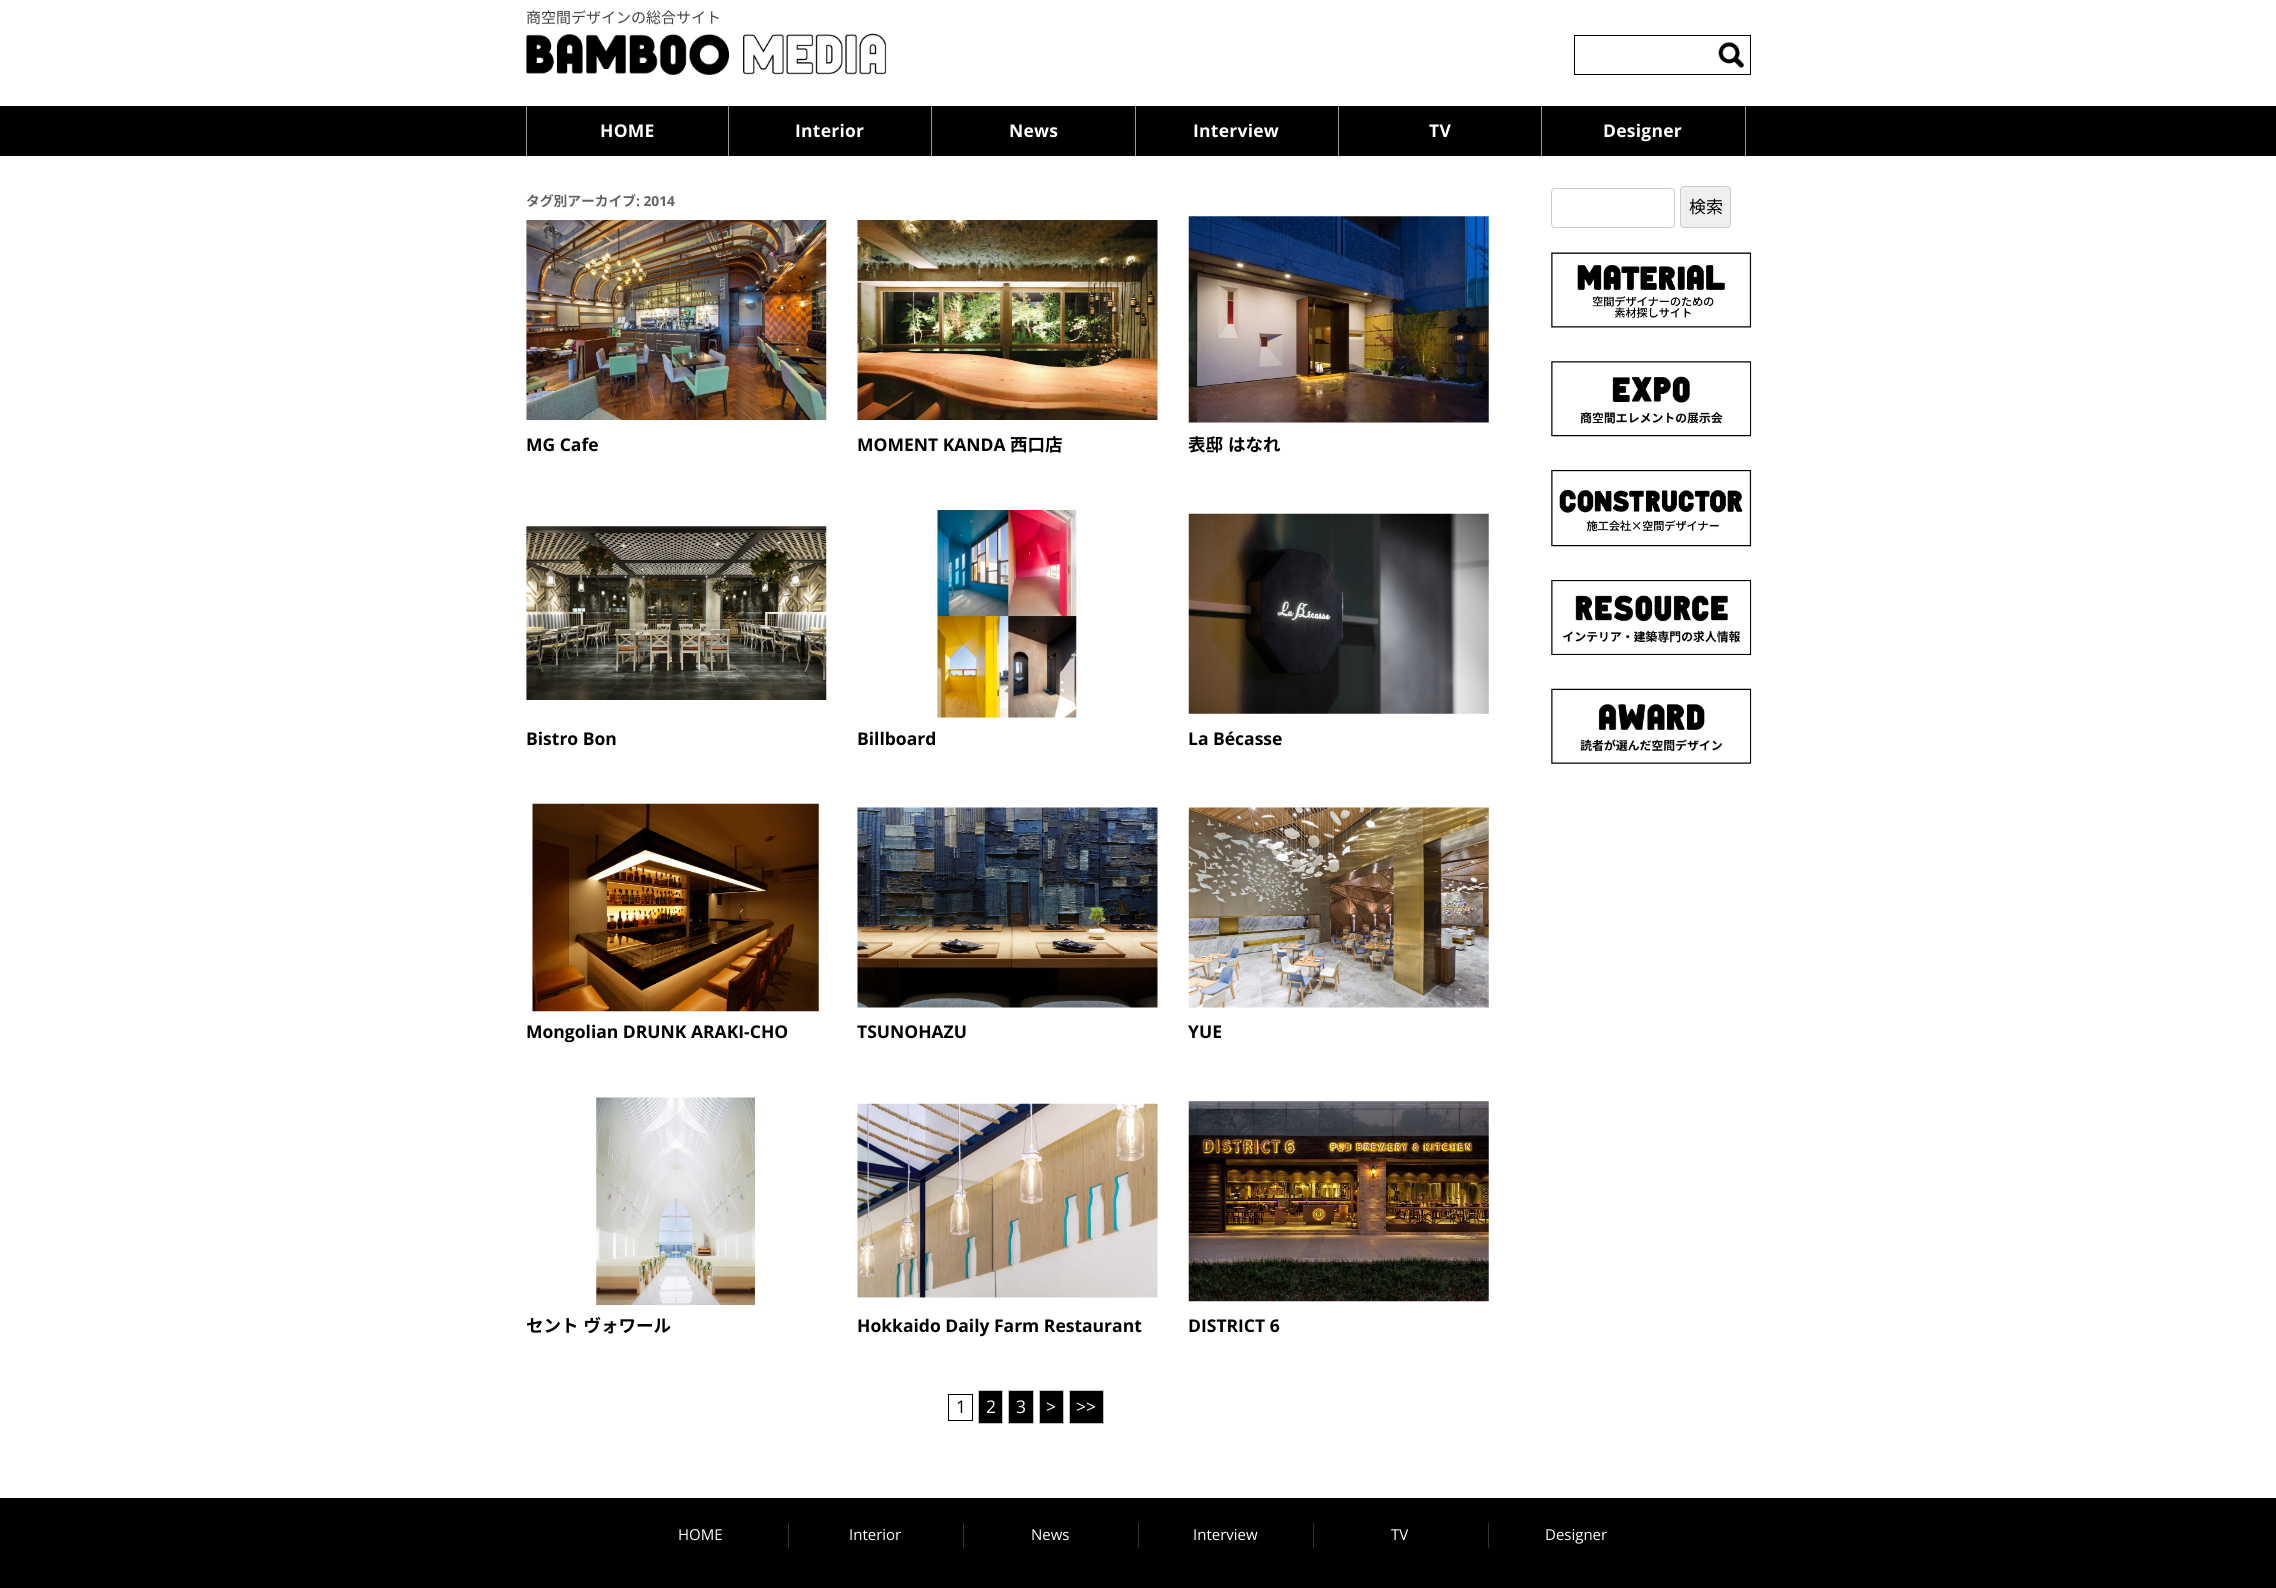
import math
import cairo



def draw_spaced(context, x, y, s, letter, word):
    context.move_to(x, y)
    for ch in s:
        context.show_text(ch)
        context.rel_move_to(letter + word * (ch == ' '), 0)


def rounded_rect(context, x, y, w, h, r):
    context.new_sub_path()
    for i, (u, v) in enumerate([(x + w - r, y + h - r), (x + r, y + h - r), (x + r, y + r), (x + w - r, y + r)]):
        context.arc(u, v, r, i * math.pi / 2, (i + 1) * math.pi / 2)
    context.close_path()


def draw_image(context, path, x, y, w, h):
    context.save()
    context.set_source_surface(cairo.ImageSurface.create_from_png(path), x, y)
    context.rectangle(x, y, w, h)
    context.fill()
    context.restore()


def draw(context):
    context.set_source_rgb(1, 1, 1)
    context.paint()
    draw_image(context, "images/1.png", 526, 33, 361, 42)
    context.rectangle(1574.5, 35.5, 176, 39)
    context.set_source_rgb(0, 0, 0)
    context.set_line_width(1)
    context.stroke()
    draw_image(context, "images/2.png", 1718, 42, 26, 26)
    context.rectangle(0, 106, 2276, 50)
    context.fill()
    context.set_source_rgb(153 / 255, 153 / 255, 153 / 255)
    context.rectangle(728, 106, 1, 50)
    context.fill()
    context.rectangle(526, 106, 1, 50)
    context.fill()
    context.rectangle(931, 106, 1, 50)
    context.fill()
    context.rectangle(1135, 106, 1, 50)
    context.fill()
    context.rectangle(1338, 106, 1, 50)
    context.fill()
    context.rectangle(1541, 106, 1, 50)
    context.fill()
    context.rectangle(1745, 106, 1, 50)
    context.fill()
    draw_image(context, "images/3.png", 526, 220, 301, 200)
    draw_image(context, "images/4.png", 857, 220, 301, 200)
    draw_image(context, "images/5.png", 1188, 216, 301, 207)
    draw_image(context, "images/6.png", 526, 526, 301, 174)
    draw_image(context, "images/7.png", 937, 510, 140, 208)
    draw_image(context, "images/8.png", 1188, 513, 301, 201)
    draw_image(context, "images/9.png", 532, 803, 287, 209)
    draw_image(context, "images/10.png", 857, 807, 301, 201)
    draw_image(context, "images/11.png", 1188, 807, 301, 201)
    draw_image(context, "images/12.png", 596, 1097, 159, 208)
    draw_image(context, "images/13.png", 857, 1103, 301, 195)
    draw_image(context, "images/14.png", 1188, 1101, 301, 201)
    context.rectangle(948.5, 1394.5, 24, 26)
    context.set_source_rgb(0, 0, 0)
    context.stroke()
    context.rectangle(978.5, 1390.5, 24, 33)
    context.fill_preserve()
    context.set_source_rgb(191 / 255, 191 / 255, 191 / 255)
    context.stroke()
    context.set_source_rgb(0, 0, 0)
    context.rectangle(1008.5, 1390.5, 25, 33)
    context.fill_preserve()
    context.set_source_rgb(191 / 255, 191 / 255, 191 / 255)
    context.stroke()
    context.set_source_rgb(0, 0, 0)
    context.rectangle(1039.5, 1390.5, 24, 33)
    context.fill_preserve()
    context.set_source_rgb(191 / 255, 191 / 255, 191 / 255)
    context.stroke()
    context.set_source_rgb(0, 0, 0)
    context.rectangle(1069.5, 1390.5, 34, 33)
    context.fill_preserve()
    context.set_source_rgb(191 / 255, 191 / 255, 191 / 255)
    context.stroke()
    rounded_rect(context, 1551.5, 188.5, 123, 39, 3.5)
    context.set_source_rgb(204 / 255, 204 / 255, 204 / 255)
    context.stroke()
    context.set_source_rgb(239 / 255, 239 / 255, 239 / 255)
    rounded_rect(context, 1680.5, 186.5, 50, 41, 3.5)
    context.fill_preserve()
    context.set_source_rgb(204 / 255, 204 / 255, 204 / 255)
    context.stroke()
    draw_image(context, "images/15.png", 1551, 252, 201, 76)
    draw_image(context, "images/16.png", 1551, 361, 201, 76)
    draw_image(context, "images/17.png", 1551, 470, 201, 77)
    draw_image(context, "images/18.png", 1551, 580, 201, 75)
    draw_image(context, "images/19.png", 1551, 688, 201, 76)
    context.set_source_rgb(0, 0, 0)
    context.rectangle(0, 1498, 2276, 90)
    context.fill()
    context.set_source_rgb(51 / 255, 51 / 255, 51 / 255)
    context.rectangle(788, 1523, 1, 25)
    context.fill()
    context.rectangle(963, 1523, 1, 25)
    context.fill()
    context.rectangle(1138, 1523, 1, 25)
    context.fill()
    context.rectangle(1313, 1523, 1, 25)
    context.fill()
    context.rectangle(1488, 1523, 1, 25)
    context.fill()
    context.select_font_face("Noto Sans JP")
    context.set_font_size(15)
    context.set_source_rgb(68 / 255, 68 / 255, 68 / 255)
    context.move_to(526, 23)
    context.show_text("商空間デザインの総合サイト")
    context.select_font_face("Open Sans", cairo.FontSlant.NORMAL, cairo.FontWeight.BOLD)
    context.set_font_size(17.5)
    context.set_source_rgb(1, 1, 1)
    draw_spaced(context, 600, 137, "HOME", 0.25, 0)
    draw_spaced(context, 795, 137, "Interior", 0.25, 0)
    draw_spaced(context, 1009, 137, "News", 0.25, 0)
    draw_spaced(context, 1193, 137, "Interview", 0.25, 0)
    draw_spaced(context, 1429, 137, "TV", 0.25, 0)
    draw_spaced(context, 1603, 137, "Designer", 0.25, 0)
    context.select_font_face("Noto Sans JP", cairo.FontSlant.NORMAL, cairo.FontWeight.BOLD)
    context.set_font_size(13.75)
    context.set_source_rgb(99 / 255, 99 / 255, 99 / 255)
    context.move_to(526, 206)
    context.show_text("タグ別アーカイブ")
    context.select_font_face("Open Sans", cairo.FontSlant.NORMAL, cairo.FontWeight.BOLD)
    context.move_to(636, 206)
    context.show_text(": 2014")
    context.set_font_size(17.5)
    context.set_source_rgb(0, 0, 0)
    context.move_to(526, 451)
    context.show_text("MG Cafe")
    context.move_to(857, 451)
    context.show_text("MOMENT KANDA")
    context.select_font_face("Noto Sans JP", cairo.FontSlant.NORMAL, cairo.FontWeight.BOLD)
    context.move_to(1010, 451)
    context.show_text("西口店")
    draw_spaced(context, 1188, 451, "表邸 はなれ", 0, 1)
    context.select_font_face("Open Sans", cairo.FontSlant.NORMAL, cairo.FontWeight.BOLD)
    context.move_to(526, 745)
    context.show_text("Bistro Bon")
    context.move_to(857, 745)
    context.show_text("Billboard")
    context.move_to(1188, 745)
    context.show_text("La Bécasse")
    context.move_to(526, 1038)
    context.show_text("Mongolian DRUNK ARAKI-CHO")
    context.move_to(857, 1038)
    context.show_text("TSUNOHAZU")
    context.move_to(1188, 1038)
    context.show_text("YUE")
    context.select_font_face("Noto Sans JP", cairo.FontSlant.NORMAL, cairo.FontWeight.BOLD)
    draw_spaced(context, 526, 1332, "セント ヴォワール", 0, 1)
    context.select_font_face("Open Sans", cairo.FontSlant.NORMAL, cairo.FontWeight.BOLD)
    context.move_to(857, 1332)
    context.show_text("Hokkaido Daily Farm Restaurant")
    context.move_to(1188, 1332)
    context.show_text("DISTRICT 6")
    context.select_font_face("Open Sans")
    context.move_to(956, 1413)
    context.show_text("1")
    context.set_source_rgb(1, 1, 1)
    context.move_to(986, 1413)
    context.show_text("2")
    context.move_to(1016, 1413)
    context.show_text("3")
    context.move_to(1046, 1413)
    context.show_text(">")
    context.move_to(1076, 1413)
    context.show_text(">>")
    context.select_font_face("Noto Sans JP")
    context.set_font_size(17)
    context.set_source_rgb(0, 0, 0)
    context.move_to(1689, 213)
    context.show_text("検索")
    context.select_font_face("Open Sans")
    context.set_font_size(15)
    context.set_source_rgb(1, 1, 1)
    context.move_to(678, 1540)
    context.show_text("HOME")
    context.move_to(849, 1540)
    context.show_text("Interior")
    context.move_to(1031, 1540)
    context.show_text("News")
    context.move_to(1193, 1540)
    context.show_text("Interview")
    context.move_to(1391, 1540)
    context.show_text("TV")
    context.move_to(1545, 1540)
    context.show_text("Designer")


surface = cairo.ImageSurface(cairo.Format.RGB24, 2276, 1588)
context = cairo.Context(surface)
options = cairo.FontOptions()
options.set_hint_metrics(cairo.HintMetrics.OFF)
options.set_hint_style(cairo.HintStyle.NONE)
context.set_font_options(options)
context.set_miter_limit(4)
draw(context)
surface.write_to_png("out.png")
